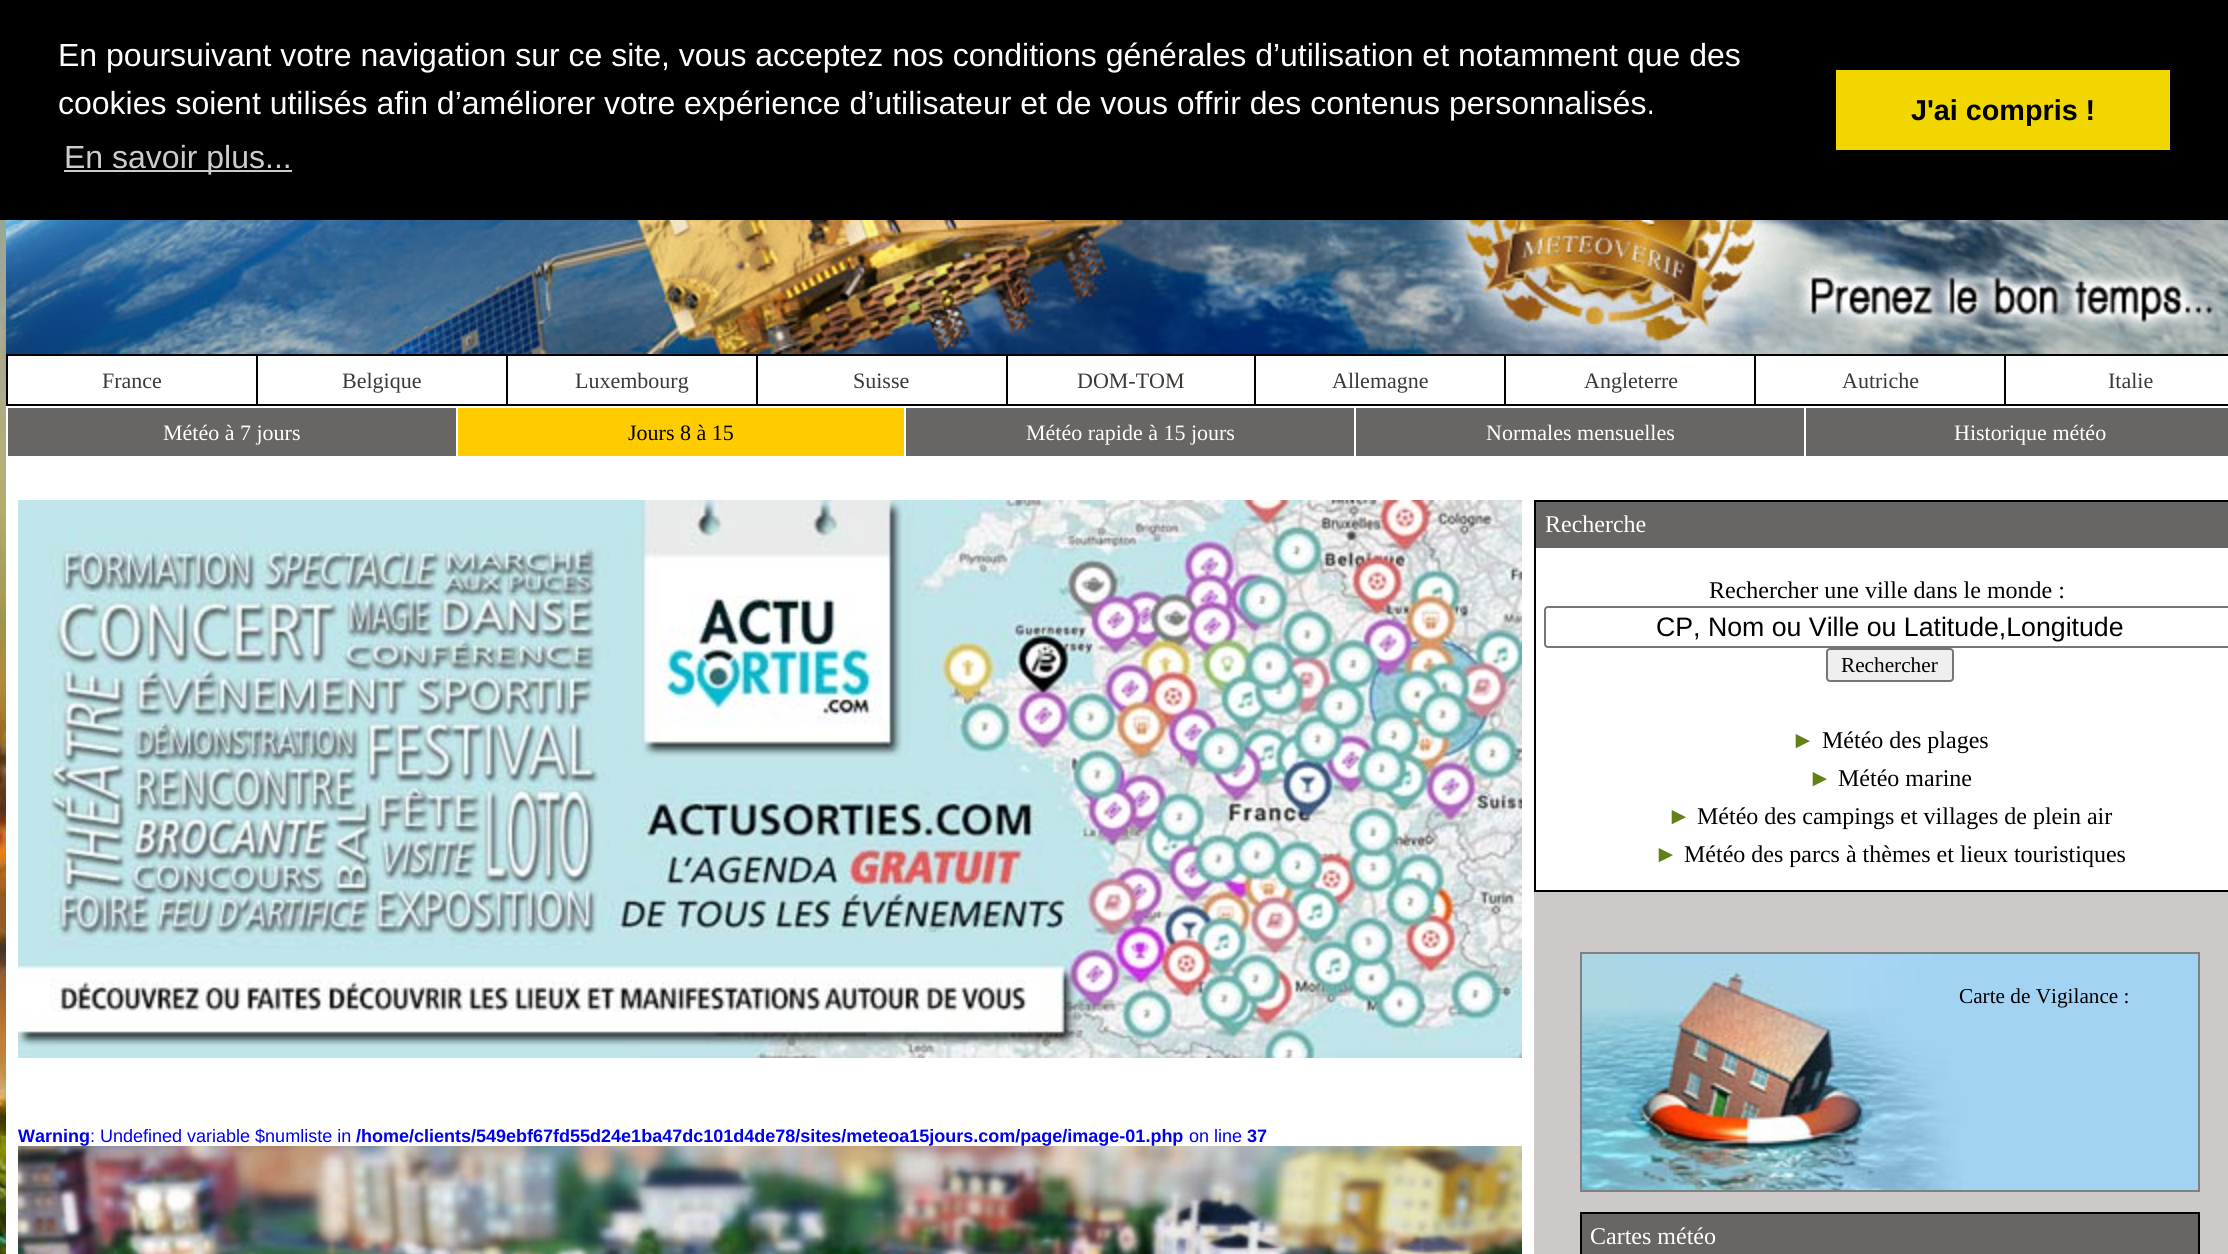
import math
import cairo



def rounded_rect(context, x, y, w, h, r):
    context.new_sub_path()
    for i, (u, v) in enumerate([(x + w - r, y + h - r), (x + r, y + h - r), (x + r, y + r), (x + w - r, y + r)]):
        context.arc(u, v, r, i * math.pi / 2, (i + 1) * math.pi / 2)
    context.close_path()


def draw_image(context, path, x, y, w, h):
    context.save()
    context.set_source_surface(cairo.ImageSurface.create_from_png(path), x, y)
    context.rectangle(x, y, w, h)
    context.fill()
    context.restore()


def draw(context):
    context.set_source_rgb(1, 1, 1)
    context.paint()
    context.set_source_rgb(0, 0, 0)
    context.rectangle(0, 0, 2228, 220)
    context.fill()
    context.set_source_rgb(204 / 255, 204 / 255, 204 / 255)
    context.rectangle(64, 170, 228, 2)
    context.fill()
    context.set_source_rgb(241 / 255, 214 / 255, 0)
    context.rectangle(1836, 70, 334, 80)
    context.fill()
    draw_image(context, "images/1.png", 0, 220, 6, 1034)
    draw_image(context, "images/2.png", 6, 220, 2222, 134)
    context.set_source_rgb(0, 0, 0)
    context.rectangle(6, 354, 2222, 2)
    context.fill()
    context.rectangle(6, 404, 2222, 2)
    context.fill()
    context.rectangle(6, 354, 2, 52)
    context.fill()
    context.rectangle(256, 354, 2, 52)
    context.fill()
    context.rectangle(506, 354, 2, 52)
    context.fill()
    context.rectangle(756, 354, 2, 52)
    context.fill()
    context.rectangle(1006, 354, 2, 52)
    context.fill()
    context.rectangle(1254, 354, 2, 52)
    context.fill()
    context.rectangle(1504, 354, 2, 52)
    context.fill()
    context.rectangle(1754, 354, 2, 52)
    context.fill()
    context.rectangle(2004, 354, 2, 52)
    context.fill()
    context.set_source_rgb(104 / 255, 102 / 255, 101 / 255)
    context.rectangle(8, 408, 2220, 48)
    context.fill()
    context.set_source_rgb(1, 204 / 255, 0)
    context.rectangle(458, 408, 446, 48)
    context.fill()
    context.set_source_rgb(1, 1, 1)
    context.rectangle(456, 406, 2, 52)
    context.fill()
    context.rectangle(904, 406, 2, 52)
    context.fill()
    context.rectangle(1354, 406, 2, 52)
    context.fill()
    context.rectangle(1804, 406, 2, 52)
    context.fill()
    draw_image(context, "images/3.png", 18, 500, 1504, 558)
    draw_image(context, "images/4.png", 18, 1146, 1504, 108)
    context.set_source_rgb(204 / 255, 201 / 255, 200 / 255)
    context.rectangle(1534, 892, 694, 362)
    context.fill()
    context.set_source_rgb(0, 0, 0)
    context.rectangle(1534, 500, 694, 2)
    context.fill()
    context.rectangle(1534, 890, 694, 2)
    context.fill()
    context.rectangle(1534, 500, 2, 392)
    context.fill()
    context.set_source_rgb(104 / 255, 102 / 255, 101 / 255)
    context.rectangle(1536, 502, 692, 46)
    context.fill()
    rounded_rect(context, 1545, 607, 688, 40, 3)
    context.set_source_rgb(118 / 255, 118 / 255, 118 / 255)
    context.stroke()
    context.set_source_rgb(239 / 255, 239 / 255, 239 / 255)
    rounded_rect(context, 1827, 649, 126, 32, 3)
    context.fill_preserve()
    context.set_source_rgb(118 / 255, 118 / 255, 118 / 255)
    context.stroke()
    draw_image(context, "images/5.png", 1582, 954, 616, 236)
    context.set_source_rgb(128 / 255, 128 / 255, 128 / 255)
    context.rectangle(1580, 952, 620, 2)
    context.fill()
    context.rectangle(2198, 952, 2, 240)
    context.fill()
    context.rectangle(1580, 1190, 620, 2)
    context.fill()
    context.rectangle(1580, 952, 2, 240)
    context.fill()
    context.set_source_rgb(0, 0, 0)
    context.rectangle(1580, 1212, 620, 2)
    context.fill()
    context.rectangle(2198, 1212, 2, 42)
    context.fill()
    context.rectangle(1580, 1212, 2, 42)
    context.fill()
    context.set_source_rgb(104 / 255, 102 / 255, 101 / 255)
    context.rectangle(1582, 1214, 616, 40)
    context.fill()
    context.select_font_face("Liberation Sans")
    context.set_font_size(32)
    context.set_source_rgb(1, 1, 1)
    context.move_to(58, 66)
    context.show_text("En poursuivant votre navigation sur ce site, vous acceptez nos conditions générales d’utilisation et notamment que des")
    context.move_to(58, 114)
    context.show_text("cookies soient utilisés afin d’améliorer votre expérience d’utilisateur et de vous offrir des contenus personnalisés.")
    context.set_source_rgb(204 / 255, 204 / 255, 204 / 255)
    context.move_to(64, 168)
    context.show_text("En savoir plus...")
    context.select_font_face("Liberation Sans", cairo.FontSlant.NORMAL, cairo.FontWeight.BOLD)
    context.set_font_size(28.75)
    context.set_source_rgb(0, 0, 0)
    context.move_to(1911, 120)
    context.show_text("J'ai compris !")
    context.select_font_face("Liberation Serif")
    context.set_font_size(22)
    context.set_source_rgb(62 / 255, 56 / 255, 53 / 255)
    context.move_to(102, 388)
    context.show_text("France")
    context.move_to(342, 388)
    context.show_text("Belgique")
    context.move_to(575, 388)
    context.show_text("Luxembourg")
    context.move_to(853, 388)
    context.show_text("Suisse")
    context.move_to(1077, 388)
    context.show_text("DOM-TOM")
    context.move_to(1332, 388)
    context.show_text("Allemagne")
    context.move_to(1584, 388)
    context.show_text("Angleterre")
    context.move_to(1842, 388)
    context.show_text("Autriche")
    context.move_to(2108, 388)
    context.show_text("Italie")
    context.set_source_rgb(1, 1, 1)
    context.move_to(163, 440)
    context.show_text("Météo à 7 jours")
    context.set_source_rgb(0, 0, 0)
    context.move_to(628, 440)
    context.show_text("Jours 8 à 15")
    context.set_source_rgb(1, 1, 1)
    context.move_to(1026, 440)
    context.show_text("Météo rapide à 15 jours")
    context.move_to(1486, 440)
    context.show_text("Normales mensuelles")
    context.move_to(1954, 440)
    context.show_text("Historique météo")
    context.select_font_face("Liberation Sans", cairo.FontSlant.NORMAL, cairo.FontWeight.BOLD)
    context.set_font_size(18)
    context.set_source_rgb(0, 0, 238 / 255)
    context.move_to(18, 1142)
    context.show_text("Warning")
    context.select_font_face("Liberation Sans")
    context.move_to(90, 1142)
    context.show_text(": Undefined variable $numliste in")
    context.select_font_face("Liberation Sans", cairo.FontSlant.NORMAL, cairo.FontWeight.BOLD)
    context.move_to(356, 1142)
    context.show_text("/home/clients/549ebf67fd55d24e1ba47dc101d4de78/sites/meteoa15jours.com/page/image-01.php")
    context.select_font_face("Liberation Sans")
    context.move_to(1189, 1142)
    context.show_text("on line")
    context.select_font_face("Liberation Sans", cairo.FontSlant.NORMAL, cairo.FontWeight.BOLD)
    context.move_to(1247, 1142)
    context.show_text("37")
    context.select_font_face("Liberation Serif")
    context.set_font_size(24)
    context.set_source_rgb(1, 1, 1)
    context.move_to(1545, 532)
    context.show_text("Recherche")
    context.set_source_rgb(0, 0, 0)
    context.move_to(1709, 598)
    context.show_text("Rechercher une ville dans le monde :")
    context.select_font_face("Liberation Sans")
    context.set_font_size(26.7)
    context.move_to(1656, 636)
    context.show_text("CP, Nom ou Ville ou Latitude,Longitude")
    context.select_font_face("Liberation Serif")
    context.set_font_size(21.25)
    context.move_to(1841, 672)
    context.show_text("Rechercher")
    context.select_font_face("Liberation Sans")
    context.set_font_size(24)
    context.set_source_rgb(99 / 255, 129 / 255, 25 / 255)
    context.move_to(1791, 748)
    context.show_text("►")
    context.select_font_face("Liberation Serif")
    context.set_source_rgb(0, 0, 0)
    context.move_to(1822, 748)
    context.show_text("Météo des plages")
    context.select_font_face("Liberation Sans")
    context.set_source_rgb(99 / 255, 129 / 255, 25 / 255)
    context.move_to(1808, 786)
    context.show_text("►")
    context.select_font_face("Liberation Serif")
    context.set_source_rgb(0, 0, 0)
    context.move_to(1838, 786)
    context.show_text("Météo marine")
    context.select_font_face("Liberation Sans")
    context.set_source_rgb(99 / 255, 129 / 255, 25 / 255)
    context.move_to(1667, 824)
    context.show_text("►")
    context.select_font_face("Liberation Serif")
    context.set_source_rgb(0, 0, 0)
    context.move_to(1697, 824)
    context.show_text("Météo des campings et villages de plein air")
    context.select_font_face("Liberation Sans")
    context.set_source_rgb(99 / 255, 129 / 255, 25 / 255)
    context.move_to(1654, 862)
    context.show_text("►")
    context.select_font_face("Liberation Serif")
    context.set_source_rgb(0, 0, 0)
    context.move_to(1684, 862)
    context.show_text("Météo des parcs à thèmes et lieux touristiques")
    context.set_font_size(21.25)
    context.move_to(1959, 1003)
    context.show_text("Carte de Vigilance :")
    context.set_font_size(24)
    context.set_source_rgb(1, 1, 1)
    context.move_to(1590, 1244)
    context.show_text("Cartes météo")


surface = cairo.ImageSurface(cairo.Format.RGB24, 2228, 1254)
context = cairo.Context(surface)
options = cairo.FontOptions()
options.set_hint_metrics(cairo.HintMetrics.OFF)
options.set_hint_style(cairo.HintStyle.NONE)
context.set_font_options(options)
context.set_miter_limit(4)
draw(context)
surface.write_to_png("out.png")
